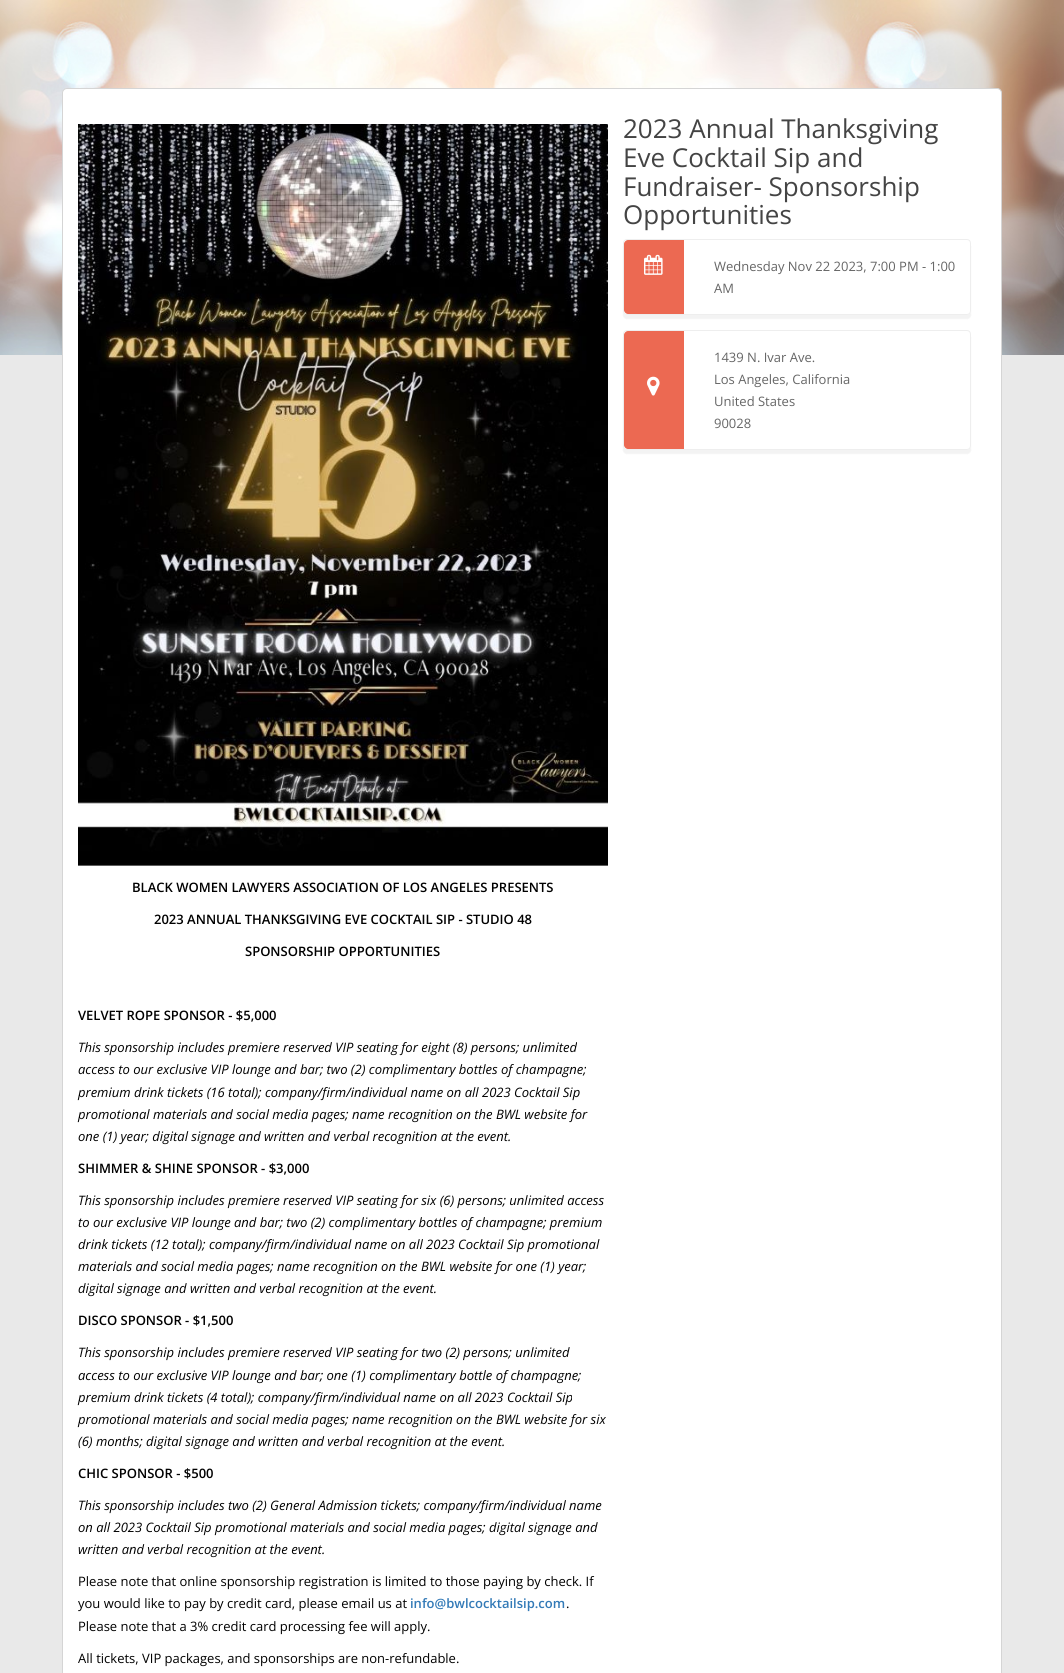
import math
import cairo



def rounded_rect(context, x, y, w, h, r):
    context.new_sub_path()
    for i, (u, v) in enumerate([(x + w - r, y + h - r), (x + r, y + h - r), (x + r, y + r), (x + w - r, y + r)]):
        context.arc(u, v, r, i * math.pi / 2, (i + 1) * math.pi / 2)
    context.close_path()


def draw_shadow(context, x, y, w, h, r, blur, alpha):
    context.push_group_with_content(cairo.Content.ALPHA)
    context.set_operator(cairo.Operator.SOURCE)
    for i in range(15, -16, -2):
        e = blur * i / 6
        if min(w, h) + 2 * e > 0:
            context.set_source_rgba(0, 0, 0, alpha * math.erfc((i - 1) / 8.5) / 2)
            rounded_rect(context, x - e, y - e, w + 2 * e, h + 2 * e, max(0, min(r + e + blur * .6, min(w, h) / 2 + e)))
            context.fill()
    context.mask(context.pop_group())


def draw_image(context, path, x, y, w, h):
    context.save()
    context.set_source_surface(cairo.ImageSurface.create_from_png(path), x, y)
    context.rectangle(x, y, w, h)
    context.fill()
    context.restore()


def draw(context):
    context.set_source_rgb(233 / 255, 233 / 255, 233 / 255)
    context.paint()
    draw_image(context, "images/1.png", 0, 0, 1064, 355)
    context.set_source_rgb(1, 1, 1)
    rounded_rect(context, 62.5, 88.5, 939, 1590, 4.5)
    context.fill_preserve()
    context.set_source_rgb(213 / 255, 213 / 255, 213 / 255)
    context.set_line_width(1)
    context.stroke()
    context.save()
    context.set_fill_rule(cairo.FillRule.EVEN_ODD)
    context.new_path()
    context.move_to(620, 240)
    context.line_to(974, 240)
    context.line_to(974, 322)
    context.line_to(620, 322)
    context.close_path()
    context.move_to(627, 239)
    context.line_to(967, 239)
    context.curve_to(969, 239, 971, 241, 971, 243)
    context.line_to(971, 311)
    context.curve_to(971, 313, 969, 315, 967, 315)
    context.line_to(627, 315)
    context.curve_to(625, 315, 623, 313, 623, 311)
    context.line_to(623, 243)
    context.curve_to(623, 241, 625, 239, 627, 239)
    context.close_path()
    context.clip()
    context.set_source_rgb(0, 0, 0)
    draw_shadow(context, 623, 243, 348, 76, 4, 0.5, 0.05)
    context.restore()
    rounded_rect(context, 623.5, 239.5, 347, 75, 3.5)
    context.set_source_rgb(238 / 255, 238 / 255, 238 / 255)
    context.stroke()
    context.set_source_rgb(236 / 255, 105 / 255, 82 / 255)
    context.new_path()
    context.move_to(628, 240)
    context.line_to(684, 240)
    context.line_to(684, 314)
    context.line_to(628, 314)
    context.curve_to(626, 314, 624, 312, 624, 310)
    context.line_to(624, 244)
    context.curve_to(624, 242, 626, 240, 628, 240)
    context.close_path()
    context.fill()
    draw_image(context, "images/2.png", 644, 254, 19, 21)
    context.save()
    context.set_fill_rule(cairo.FillRule.EVEN_ODD)
    context.new_path()
    context.move_to(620, 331)
    context.line_to(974, 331)
    context.line_to(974, 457)
    context.line_to(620, 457)
    context.close_path()
    context.move_to(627, 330)
    context.line_to(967, 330)
    context.curve_to(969, 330, 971, 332, 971, 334)
    context.line_to(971, 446)
    context.curve_to(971, 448, 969, 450, 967, 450)
    context.line_to(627, 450)
    context.curve_to(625, 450, 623, 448, 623, 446)
    context.line_to(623, 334)
    context.curve_to(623, 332, 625, 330, 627, 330)
    context.close_path()
    context.clip()
    context.set_source_rgb(0, 0, 0)
    draw_shadow(context, 623, 334, 348, 120, 4, 0.5, 0.05)
    context.restore()
    rounded_rect(context, 623.5, 330.5, 347, 119, 3.5)
    context.set_source_rgb(238 / 255, 238 / 255, 238 / 255)
    context.stroke()
    context.set_source_rgb(236 / 255, 105 / 255, 82 / 255)
    context.new_path()
    context.move_to(628, 331)
    context.line_to(684, 331)
    context.line_to(684, 449)
    context.line_to(628, 449)
    context.curve_to(626, 449, 624, 447, 624, 445)
    context.line_to(624, 335)
    context.curve_to(624, 333, 626, 331, 628, 331)
    context.close_path()
    context.fill()
    draw_image(context, "images/3.png", 647, 376, 13, 20)
    draw_image(context, "images/4.png", 78, 124, 530, 742)
    context.select_font_face("Open Sans")
    context.set_font_size(26)
    context.set_source_rgb(68 / 255, 68 / 255, 68 / 255)
    context.move_to(623, 138)
    context.show_text("2023 Annual Thanksgiving")
    context.move_to(623, 167)
    context.show_text("Eve Cocktail Sip and")
    context.move_to(623, 196)
    context.show_text("Fundraiser- Sponsorship")
    context.move_to(623, 224)
    context.show_text("Opportunities")
    context.set_font_size(13)
    context.set_source_rgb(102 / 255, 102 / 255, 102 / 255)
    context.move_to(714, 271)
    context.show_text("Wednesday Nov 22 2023, 7:00 PM - 1:00")
    context.move_to(714, 293)
    context.show_text("AM")
    context.move_to(714, 362)
    context.show_text("1439 N. Ivar Ave.")
    context.move_to(714, 384)
    context.show_text("Los Angeles, California")
    context.move_to(714, 406)
    context.show_text("United States")
    context.move_to(714, 428)
    context.show_text("90028")
    context.select_font_face("Open Sans SemiBold")
    context.set_source_rgb(0, 0, 0)
    context.move_to(132, 892)
    context.show_text("BLACK WOMEN LAWYERS ASSOCIATION OF LOS ANGELES PRESENTS")
    context.move_to(154, 924)
    context.show_text("2023 ANNUAL THANKSGIVING EVE COCKTAIL SIP - STUDIO 48")
    context.move_to(245, 956)
    context.show_text("SPONSORSHIP OPPORTUNITIES")
    context.move_to(78, 1020)
    context.show_text("VELVET ROPE SPONSOR - $5,000")
    context.select_font_face("Open Sans", cairo.FontSlant.ITALIC)
    context.move_to(78, 1052)
    context.show_text("This sponsorship includes premiere reserved VIP seating for eight (8) persons; unlimited")
    context.move_to(78, 1074)
    context.show_text("access to our exclusive VIP lounge and bar; two (2) complimentary bottles of champagne;")
    context.move_to(78, 1097)
    context.show_text("premium drink tickets (16 total); company/firm/individual name on all 2023 Cocktail Sip")
    context.move_to(78, 1119)
    context.show_text("promotional materials and social media pages; name recognition on the BWL website for")
    context.move_to(78, 1141)
    context.show_text("one (1) year; digital signage and written and verbal recognition at the event.")
    context.select_font_face("Open Sans SemiBold")
    context.move_to(78, 1173)
    context.show_text("SHIMMER & SHINE SPONSOR - $3,000")
    context.select_font_face("Open Sans", cairo.FontSlant.ITALIC)
    context.move_to(78, 1205)
    context.show_text("This sponsorship includes premiere reserved VIP seating for six (6) persons; unlimited access")
    context.move_to(78, 1227)
    context.show_text("to our exclusive VIP lounge and bar; two (2) complimentary bottles of champagne; premium")
    context.move_to(78, 1249)
    context.show_text("drink tickets (12 total); company/firm/individual name on all 2023 Cocktail Sip promotional")
    context.move_to(78, 1271)
    context.show_text("materials and social media pages; name recognition on the BWL website for one (1) year;")
    context.move_to(78, 1293)
    context.show_text("digital signage and written and verbal recognition at the event.")
    context.select_font_face("Open Sans SemiBold")
    context.move_to(78, 1325)
    context.show_text("DISCO SPONSOR - $1,500")
    context.select_font_face("Open Sans", cairo.FontSlant.ITALIC)
    context.move_to(78, 1357)
    context.show_text("This sponsorship includes premiere reserved VIP seating for two (2) persons; unlimited")
    context.move_to(78, 1380)
    context.show_text("access to our exclusive VIP lounge and bar; one (1) complimentary bottle of champagne;")
    context.move_to(78, 1402)
    context.show_text("premium drink tickets (4 total); company/firm/individual name on all 2023 Cocktail Sip")
    context.move_to(78, 1424)
    context.show_text("promotional materials and social media pages; name recognition on the BWL website for six")
    context.move_to(78, 1446)
    context.show_text("(6) months; digital signage and written and verbal recognition at the event.")
    context.select_font_face("Open Sans SemiBold")
    context.move_to(78, 1478)
    context.show_text("CHIC SPONSOR - $500")
    context.select_font_face("Open Sans", cairo.FontSlant.ITALIC)
    context.move_to(78, 1510)
    context.show_text("This sponsorship includes two (2) General Admission tickets; company/firm/individual name")
    context.move_to(78, 1532)
    context.show_text("on all 2023 Cocktail Sip promotional materials and social media pages; digital signage and")
    context.move_to(78, 1554)
    context.show_text("written and verbal recognition at the event.")
    context.select_font_face("Open Sans")
    context.move_to(78, 1586)
    context.show_text("Please note that online sponsorship registration is limited to those paying by check. If")
    context.move_to(78, 1608)
    context.show_text("you would like to pay by credit card, please email us at")
    context.select_font_face("Open Sans SemiBold")
    context.set_source_rgb(51 / 255, 122 / 255, 183 / 255)
    context.move_to(410, 1608)
    context.show_text("info@bwlcocktailsip.com")
    context.select_font_face("Open Sans")
    context.set_source_rgb(0, 0, 0)
    context.move_to(566, 1608)
    context.show_text(".")
    context.move_to(78, 1631)
    context.show_text("Please note that a 3% credit card processing fee will apply.")
    context.move_to(78, 1663)
    context.show_text("All tickets, VIP packages, and sponsorships are non-refundable.")


surface = cairo.ImageSurface(cairo.Format.RGB24, 1064, 1673)
context = cairo.Context(surface)
options = cairo.FontOptions()
options.set_hint_metrics(cairo.HintMetrics.OFF)
options.set_hint_style(cairo.HintStyle.NONE)
context.set_font_options(options)
context.set_miter_limit(4)
draw(context)
surface.write_to_png("out.png")
